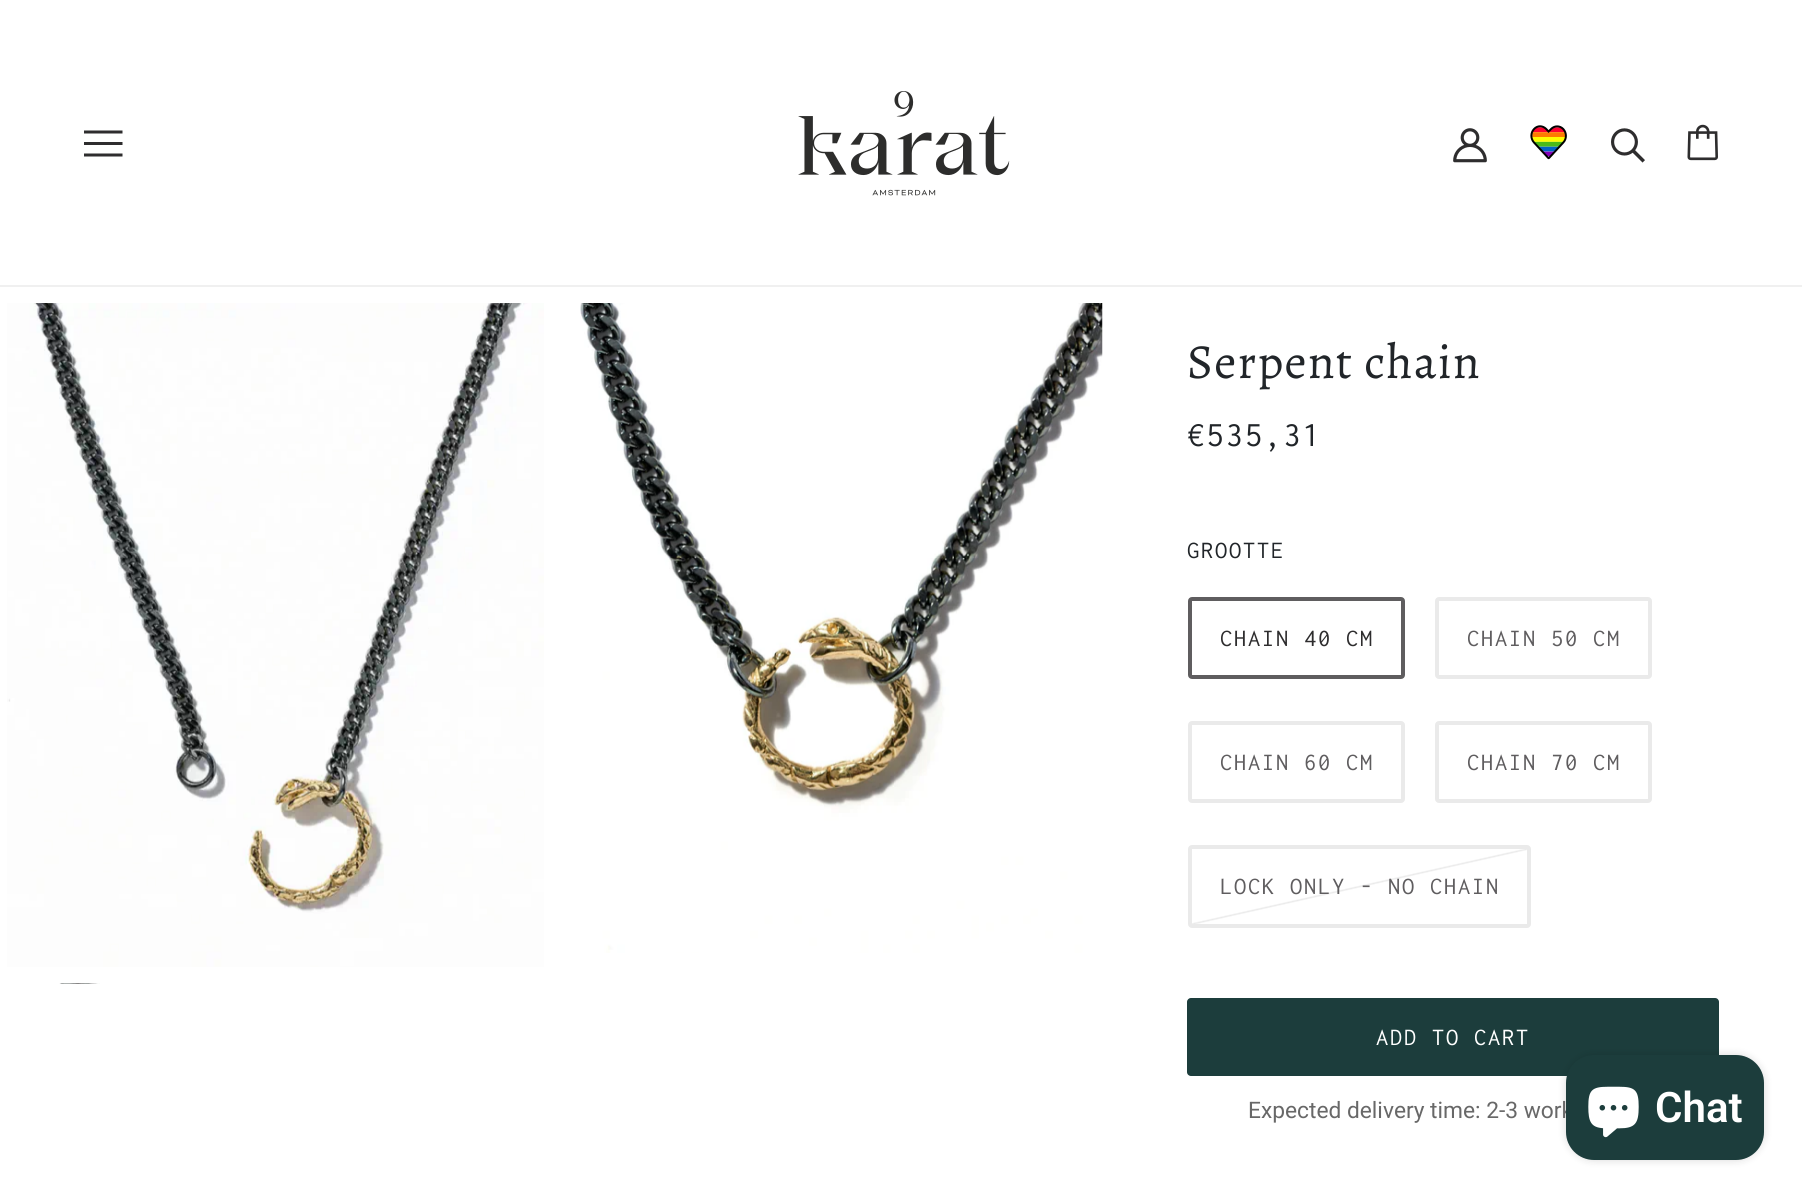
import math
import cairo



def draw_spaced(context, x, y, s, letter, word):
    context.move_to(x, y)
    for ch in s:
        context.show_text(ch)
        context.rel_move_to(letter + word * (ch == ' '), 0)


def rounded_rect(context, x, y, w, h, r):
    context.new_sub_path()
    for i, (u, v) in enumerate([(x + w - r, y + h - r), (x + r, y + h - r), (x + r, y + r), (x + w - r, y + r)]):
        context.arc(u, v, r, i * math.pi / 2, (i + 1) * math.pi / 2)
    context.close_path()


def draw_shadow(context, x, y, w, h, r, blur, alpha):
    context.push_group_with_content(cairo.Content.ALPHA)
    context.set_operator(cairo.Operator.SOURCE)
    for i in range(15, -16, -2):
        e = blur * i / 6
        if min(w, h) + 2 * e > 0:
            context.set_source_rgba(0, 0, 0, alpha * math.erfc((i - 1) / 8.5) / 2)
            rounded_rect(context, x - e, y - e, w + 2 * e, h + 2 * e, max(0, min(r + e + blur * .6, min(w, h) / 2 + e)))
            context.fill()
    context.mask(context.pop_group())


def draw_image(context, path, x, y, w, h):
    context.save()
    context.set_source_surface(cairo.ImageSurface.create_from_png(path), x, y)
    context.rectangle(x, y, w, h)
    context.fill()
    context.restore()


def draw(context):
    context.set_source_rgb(1, 1, 1)
    context.paint()
    context.set_source_rgb(240 / 255, 240 / 255, 240 / 255)
    context.rectangle(0, 285, 1802, 2)
    context.fill()
    context.set_source_rgb(46 / 255, 45 / 255, 46 / 255)
    context.new_path()
    context.move_to(84, 133.5)
    context.line_to(84, 130.5)
    context.line_to(122.5, 130.5)
    context.line_to(122.5, 133.5)
    context.close_path()
    context.move_to(84, 145)
    context.line_to(84, 142)
    context.line_to(122.5, 142)
    context.line_to(122.5, 145)
    context.close_path()
    context.move_to(84, 156.5)
    context.line_to(84, 153.5)
    context.line_to(122.5, 153.5)
    context.line_to(122.5, 156.5)
    context.close_path()
    context.fill()
    draw_image(context, "images/1.png", 798, 91, 212, 105)
    draw_image(context, "images/2.png", 1453, 128, 34, 35)
    draw_image(context, "images/3.png", 1530, 125, 37, 35)
    draw_image(context, "images/4.png", 1611, 128, 34, 35)
    draw_image(context, "images/5.png", 1687, 124, 31, 37)
    draw_image(context, "images/6.png", 7, 303, 537, 664)
    draw_image(context, "images/7.png", 59, 983, 41, 1)
    draw_image(context, "images/8.png", 580, 303, 523, 650)
    rounded_rect(context, 1190, 599, 213, 78, 2)
    context.set_source_rgb(95 / 255, 93 / 255, 95 / 255)
    context.set_line_width(4)
    context.stroke()
    rounded_rect(context, 1437, 599, 213, 78, 2)
    context.set_source_rgb(234 / 255, 234 / 255, 234 / 255)
    context.stroke()
    rounded_rect(context, 1190, 723, 213, 78, 2)
    context.stroke()
    rounded_rect(context, 1437, 723, 213, 78, 2)
    context.stroke()
    gradient = cairo.LinearGradient(1376, 958, 1344, 815)
    gradient.add_color_stop_rgba(0.49, 1, 1, 1, 1)
    gradient.add_color_stop_rgba(0.5, 234 / 255, 234 / 255, 234 / 255, 1)
    gradient.add_color_stop_rgba(0.51, 1, 1, 1, 1)
    context.set_source(gradient)
    context.rectangle(1192, 849, 335, 75)
    context.fill()
    rounded_rect(context, 1190, 847, 339, 79, 2)
    context.set_source_rgb(234 / 255, 234 / 255, 234 / 255)
    context.stroke()
    context.set_source_rgb(28 / 255, 61 / 255, 60 / 255)
    rounded_rect(context, 1187, 998, 532, 78, 4)
    context.fill()
    context.set_source_rgb(0, 0, 0)
    draw_shadow(context, 1566, 1055, 198, 105, 28, 4.5, 0.15)
    context.select_font_face("Alegreya")
    context.set_font_size(49)
    context.set_source_rgb(33 / 255, 37 / 255, 41 / 255)
    draw_spaced(context, 1187, 378, "Serpent chain", 1.25, 0)
    context.select_font_face("Inconsolata")
    context.set_font_size(35)
    draw_spaced(context, 1187, 446, "€535,31", 1.75, 0)
    context.set_font_size(24.5)
    draw_spaced(context, 1187, 558, "GROOTTE", 1.75, 0)
    context.set_source_rgb(46 / 255, 45 / 255, 46 / 255)
    draw_spaced(context, 1220, 646, "CHAIN 40 CM", 1.75, 0)
    context.set_source_rgb(95 / 255, 93 / 255, 95 / 255)
    draw_spaced(context, 1467, 646, "CHAIN 50 CM", 1.75, 0)
    draw_spaced(context, 1220, 770, "CHAIN 60 CM", 1.75, 0)
    draw_spaced(context, 1467, 770, "CHAIN 70 CM", 1.75, 0)
    draw_spaced(context, 1220, 894, "LOCK ONLY - NO CHAIN", 1.75, 0)
    context.set_source_rgb(1, 1, 1)
    draw_spaced(context, 1376, 1045, "ADD TO CART", 1.75, 0)
    context.select_font_face("Roboto")
    context.set_font_size(22.75)
    context.set_source_rgb(104 / 255, 104 / 255, 104 / 255)
    context.move_to(1248, 1118)
    context.show_text("Expected delivery time: 2-3 work")
    context.set_source_rgb(28 / 255, 61 / 255, 60 / 255)
    rounded_rect(context, 1566, 1055, 198, 105, 28)
    context.fill()
    draw_image(context, "images/9.png", 1588, 1086, 51, 52)
    context.select_font_face("Roboto SemiBold")
    context.set_font_size(42)
    context.set_source_rgb(1, 1, 1)
    context.move_to(1655, 1122)
    context.show_text("Chat")


surface = cairo.ImageSurface(cairo.Format.RGB24, 1802, 1196)
context = cairo.Context(surface)
options = cairo.FontOptions()
options.set_hint_metrics(cairo.HintMetrics.OFF)
options.set_hint_style(cairo.HintStyle.NONE)
context.set_font_options(options)
context.set_miter_limit(4)
draw(context)
surface.write_to_png("out.png")
